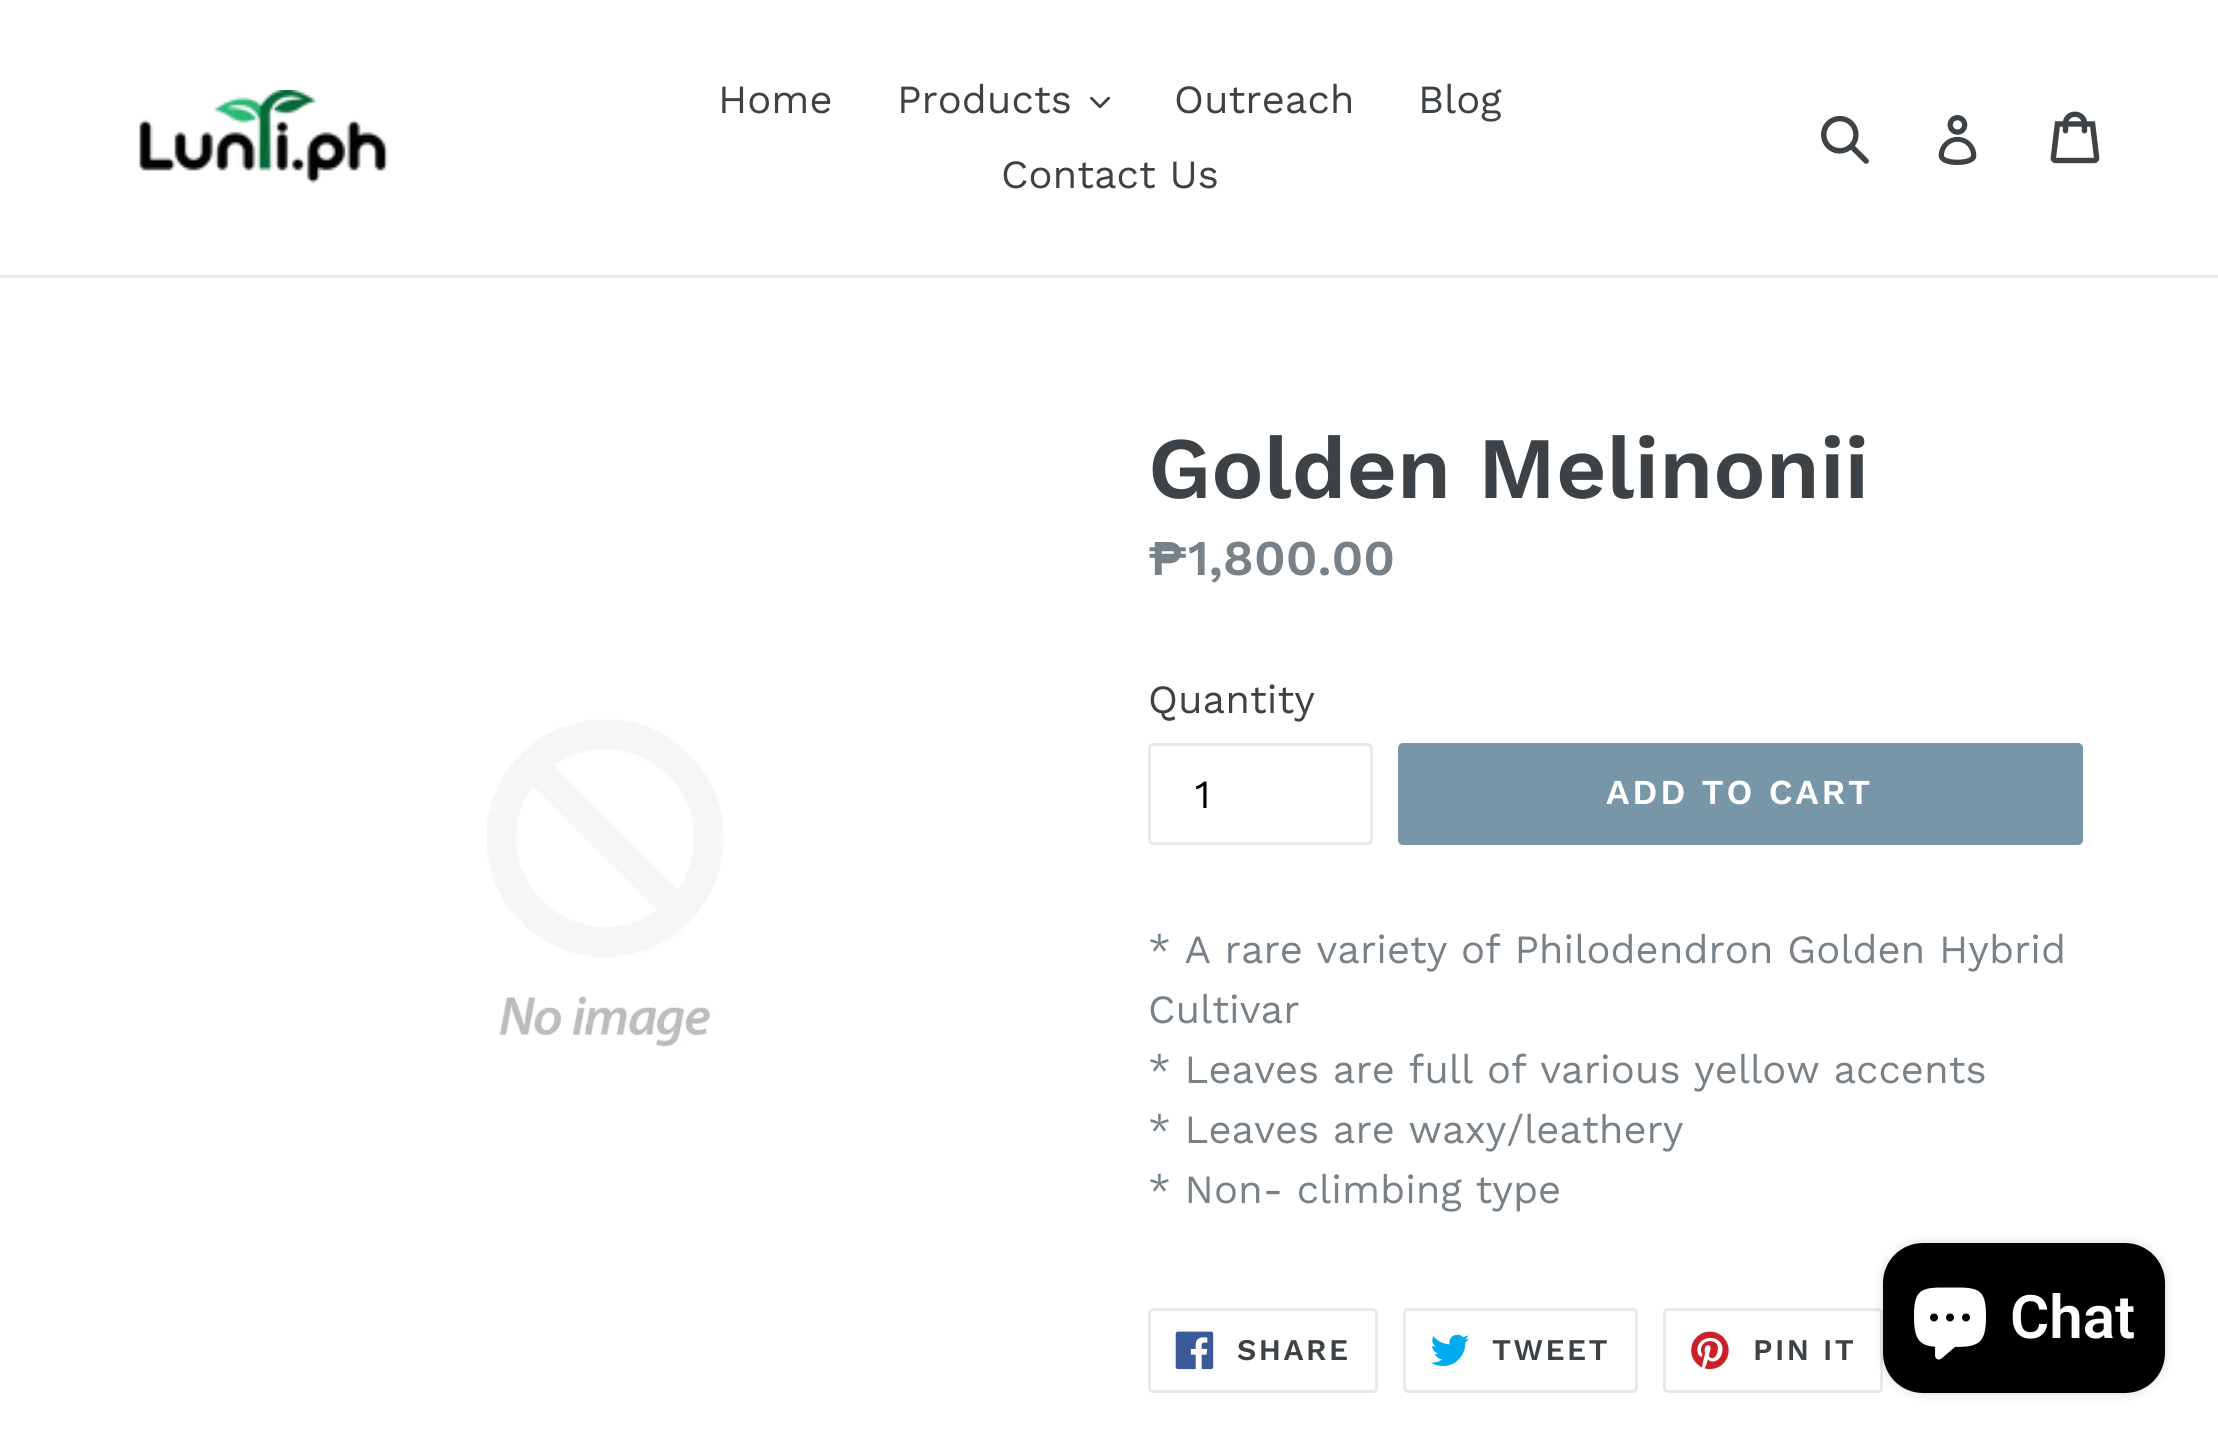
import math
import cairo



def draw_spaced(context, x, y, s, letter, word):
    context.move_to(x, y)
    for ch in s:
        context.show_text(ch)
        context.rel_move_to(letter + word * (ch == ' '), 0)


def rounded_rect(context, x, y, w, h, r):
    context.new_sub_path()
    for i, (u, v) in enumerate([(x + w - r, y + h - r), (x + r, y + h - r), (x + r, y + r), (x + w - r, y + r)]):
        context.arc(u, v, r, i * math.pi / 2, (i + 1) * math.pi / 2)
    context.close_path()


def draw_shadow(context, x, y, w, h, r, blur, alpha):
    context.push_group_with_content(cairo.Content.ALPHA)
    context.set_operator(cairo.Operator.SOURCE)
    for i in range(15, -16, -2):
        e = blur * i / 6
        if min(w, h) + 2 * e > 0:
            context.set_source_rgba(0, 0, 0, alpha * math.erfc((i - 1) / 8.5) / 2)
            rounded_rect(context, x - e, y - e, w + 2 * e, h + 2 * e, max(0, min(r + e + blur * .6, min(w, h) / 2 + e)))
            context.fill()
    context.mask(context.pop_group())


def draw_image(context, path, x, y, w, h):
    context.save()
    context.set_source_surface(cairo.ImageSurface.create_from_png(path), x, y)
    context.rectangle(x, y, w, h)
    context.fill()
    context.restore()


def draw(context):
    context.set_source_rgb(1, 1, 1)
    context.paint()
    context.set_source_rgb(232 / 255, 233 / 255, 235 / 255)
    context.rectangle(0, 275, 2218, 3)
    context.fill()
    draw_image(context, "images/1.png", 138, 90, 250, 94)
    draw_image(context, "images/2.png", 1090, 96, 20, 13)
    draw_image(context, "images/3.png", 1821, 115, 48, 49)
    draw_image(context, "images/4.png", 1938, 115, 39, 50)
    draw_image(context, "images/5.png", 2050, 111, 50, 53)
    draw_image(context, "images/6.png", 486, 719, 238, 328)
    rounded_rect(context, 1149.5, 744.5, 222, 99, 3.5)
    context.set_line_width(3)
    context.stroke()
    context.set_source_rgb(119 / 255, 150 / 255, 168 / 255)
    rounded_rect(context, 1398, 743, 685, 102, 5)
    context.fill()
    rounded_rect(context, 1149.5, 1309.5, 227, 82, 3.5)
    context.set_source_rgb(232 / 255, 233 / 255, 235 / 255)
    context.stroke()
    draw_image(context, "images/7.png", 1175, 1331, 39, 39)
    rounded_rect(context, 1404.5, 1309.5, 232, 82, 3.5)
    context.stroke()
    draw_image(context, "images/8.png", 1430, 1334, 39, 32)
    rounded_rect(context, 1664.5, 1309.5, 217, 82, 3.5)
    context.stroke()
    draw_image(context, "images/9.png", 1691, 1331, 38, 39)
    context.set_source_rgb(0, 0, 0)
    draw_shadow(context, 1883, 1243, 282, 150, 40, 6, 0.15)
    context.set_source_rgb(0, 0, 0)
    rounded_rect(context, 1883, 1243, 282, 150, 40)
    context.fill()
    draw_image(context, "images/10.png", 1914, 1287, 72, 73)
    context.select_font_face("Work Sans")
    context.set_font_size(40)
    context.set_source_rgb(61 / 255, 66 / 255, 70 / 255)
    context.move_to(718, 113)
    context.show_text("Home")
    context.move_to(897, 113)
    context.show_text("Products")
    context.move_to(1174, 113)
    context.show_text("Outreach")
    context.move_to(1418, 113)
    context.show_text("Blog")
    context.move_to(1001, 188)
    context.show_text("Contact Us")
    context.select_font_face("Work Sans SemiBold")
    context.set_font_size(87.5)
    context.move_to(1148, 498)
    context.show_text("Golden Melinonii")
    context.set_font_size(50)
    context.set_source_rgb(120 / 255, 129 / 255, 136 / 255)
    context.move_to(1148, 575)
    context.show_text("₱1,800.00")
    context.select_font_face("Work Sans")
    context.set_font_size(40)
    context.set_source_rgb(61 / 255, 66 / 255, 70 / 255)
    context.move_to(1148, 713)
    context.show_text("Quantity")
    context.set_source_rgb(0, 0, 0)
    context.move_to(1195, 808)
    context.show_text("1")
    context.select_font_face("Work Sans SemiBold")
    context.set_font_size(35)
    context.set_source_rgb(1, 1, 1)
    draw_spaced(context, 1606, 804, "ADD TO CART", 2.75, 0)
    context.select_font_face("Work Sans")
    context.set_font_size(40)
    context.set_source_rgb(120 / 255, 129 / 255, 136 / 255)
    context.move_to(1148, 963)
    context.show_text("* A rare variety of Philodendron Golden Hybrid")
    context.move_to(1148, 1023)
    context.show_text("Cultivar")
    context.move_to(1148, 1083)
    context.show_text("* Leaves are full of various yellow accents")
    context.move_to(1148, 1143)
    context.show_text("* Leaves are waxy/leathery")
    context.move_to(1148, 1203)
    context.show_text("* Non- climbing type")
    context.select_font_face("Work Sans SemiBold")
    context.set_font_size(30)
    context.set_source_rgb(61 / 255, 66 / 255, 70 / 255)
    draw_spaced(context, 1237, 1360, "SHARE", 2.5, 0)
    draw_spaced(context, 1492, 1360, "TWEET", 2.5, 0)
    draw_spaced(context, 1753, 1360, "PIN IT", 2.5, 0)
    context.select_font_face("Roboto SemiBold")
    context.set_font_size(60)
    context.set_source_rgb(1, 1, 1)
    context.move_to(2010, 1338)
    context.show_text("Chat")


surface = cairo.ImageSurface(cairo.Format.RGB24, 2218, 1443)
context = cairo.Context(surface)
options = cairo.FontOptions()
options.set_hint_metrics(cairo.HintMetrics.OFF)
options.set_hint_style(cairo.HintStyle.NONE)
context.set_font_options(options)
context.set_miter_limit(4)
draw(context)
surface.write_to_png("out.png")
